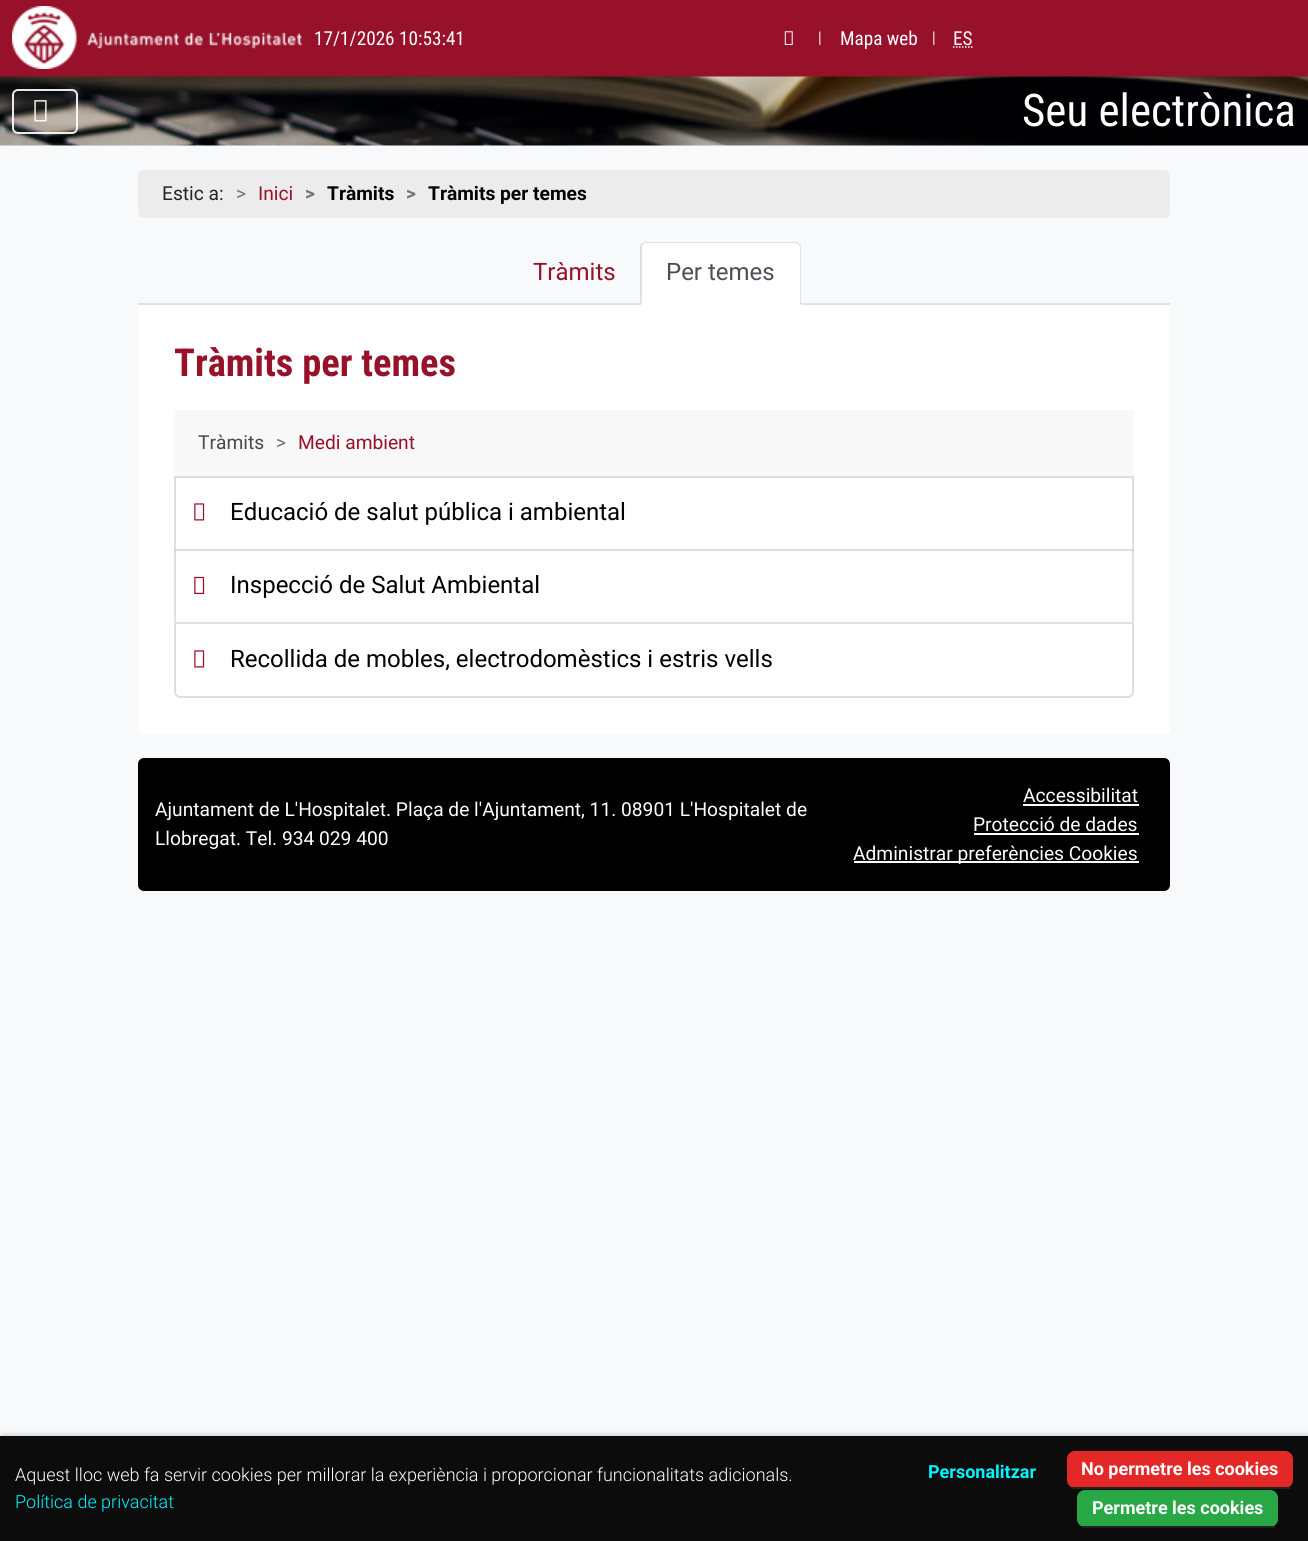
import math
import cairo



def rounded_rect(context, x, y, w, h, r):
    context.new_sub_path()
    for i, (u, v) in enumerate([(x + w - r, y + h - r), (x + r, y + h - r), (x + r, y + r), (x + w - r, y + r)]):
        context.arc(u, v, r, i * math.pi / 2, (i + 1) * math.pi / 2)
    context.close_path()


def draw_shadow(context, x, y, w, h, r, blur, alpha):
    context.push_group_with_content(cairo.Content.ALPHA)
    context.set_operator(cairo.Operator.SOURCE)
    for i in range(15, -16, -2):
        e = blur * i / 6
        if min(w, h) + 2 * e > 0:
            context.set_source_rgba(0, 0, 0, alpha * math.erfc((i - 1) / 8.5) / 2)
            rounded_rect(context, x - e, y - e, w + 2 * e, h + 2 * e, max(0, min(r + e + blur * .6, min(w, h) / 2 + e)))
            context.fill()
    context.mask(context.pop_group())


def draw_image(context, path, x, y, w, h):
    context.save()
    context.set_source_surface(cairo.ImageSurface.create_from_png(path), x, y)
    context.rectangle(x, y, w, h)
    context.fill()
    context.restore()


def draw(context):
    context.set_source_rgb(248 / 255, 249 / 255, 250 / 255)
    context.paint()
    context.set_source_rgb(151 / 255, 17 / 255, 42 / 255)
    context.rectangle(0, 0, 1308, 77)
    context.fill()
    draw_image(context, "images/1.png", 12, 6, 290, 63)
    draw_image(context, "images/2.png", 819, 31, 2, 14)
    draw_image(context, "images/3.png", 784, 31, 9, 14)
    draw_image(context, "images/2.png", 933, 31, 2, 14)
    context.new_path()
    context.move_to(953, 47)
    context.line_to(973, 47)
    context.set_source_rgb(1, 1, 1)
    context.set_line_width(1.5)
    context.set_dash([1.5, 1.5])
    context.stroke()
    draw_image(context, "images/4.png", 0, 76, 1308, 70)
    rounded_rect(context, 13, 90, 64, 43, 5)
    context.set_source_rgba(1, 1, 1, 0.9)
    context.set_line_width(2)
    context.set_dash([])
    context.stroke()
    draw_image(context, "images/5.png", 34, 100, 13, 22)
    context.set_source_rgb(236 / 255, 236 / 255, 236 / 255)
    rounded_rect(context, 138, 170, 1032, 48, 6)
    context.fill()
    context.set_source_rgb(222 / 255, 226 / 255, 230 / 255)
    context.rectangle(138, 303, 1032, 2)
    context.fill()
    context.set_source_rgb(1, 1, 1)
    context.new_path()
    context.move_to(647, 242)
    context.line_to(795, 242)
    context.curve_to(798.5, 242, 801, 244.5, 801, 248)
    context.line_to(801, 305)
    context.line_to(641, 305)
    context.line_to(641, 248)
    context.curve_to(641, 244.5, 643.5, 242, 647, 242)
    context.close_path()
    context.fill()
    context.set_source_rgb(222 / 255, 226 / 255, 230 / 255)
    context.new_path()
    context.move_to(646, 242)
    context.line_to(642, 243)
    context.line_to(643, 244)
    context.line_to(646, 243)
    context.line_to(795, 243)
    context.line_to(798, 244)
    context.line_to(799, 243)
    context.curve_to(798, 242, 796, 242, 795, 242)
    context.close_path()
    context.fill()
    context.new_path()
    context.move_to(799, 243)
    context.curve_to(800, 244, 801, 246, 801, 248)
    context.line_to(801, 304)
    context.line_to(800, 304)
    context.line_to(800, 303)
    context.line_to(800, 247)
    context.line_to(798, 244)
    context.close_path()
    context.fill()
    context.new_path()
    context.move_to(640, 245)
    context.line_to(642, 243)
    context.line_to(643, 244)
    context.curve_to(643, 245, 642, 246, 642, 248)
    context.line_to(642, 303)
    context.line_to(640, 304)
    context.close_path()
    context.fill()
    context.set_source_rgb(1, 1, 1)
    context.new_path()
    context.move_to(138, 305)
    context.line_to(1170, 305)
    context.line_to(1170, 728)
    context.curve_to(1170, 731.5, 1167.5, 734, 1164, 734)
    context.line_to(144, 734)
    context.curve_to(140.5, 734, 138, 731.5, 138, 728)
    context.close_path()
    context.fill()
    context.set_source_rgb(248 / 255, 248 / 255, 248 / 255)
    context.rectangle(174, 410, 960, 66)
    context.fill()
    context.rectangle(175, 477, 958, 73)
    context.set_source_rgb(223 / 255, 223 / 255, 223 / 255)
    context.stroke()
    draw_image(context, "images/6.png", 194, 503, 11, 18)
    context.set_source_rgba(0, 0, 0, 0.12)
    context.new_path()
    context.move_to(1134, 550)
    context.line_to(1134, 624)
    context.line_to(1132, 622)
    context.line_to(1132, 550)
    context.close_path()
    context.fill()
    context.new_path()
    context.move_to(1134, 624)
    context.line_to(174, 624)
    context.line_to(176, 622)
    context.line_to(1132, 622)
    context.close_path()
    context.fill()
    context.new_path()
    context.move_to(174, 624)
    context.line_to(174, 550)
    context.line_to(176, 550)
    context.line_to(176, 622)
    context.close_path()
    context.fill()
    draw_image(context, "images/7.png", 194, 576, 11, 18)
    context.set_source_rgb(223 / 255, 223 / 255, 223 / 255)
    context.set_fill_rule(cairo.FillRule.EVEN_ODD)
    context.new_path()
    context.move_to(174, 624)
    context.line_to(1134, 624)
    context.line_to(1134, 692)
    context.curve_to(1134, 695, 1131, 698, 1128, 698)
    context.line_to(180, 698)
    context.curve_to(177, 698, 174, 695, 174, 692)
    context.close_path()
    context.move_to(176, 624)
    context.line_to(1132, 624)
    context.line_to(1132, 692)
    context.curve_to(1132, 694, 1130, 696, 1128, 696)
    context.line_to(180, 696)
    context.curve_to(178, 696, 176, 694, 176, 692)
    context.close_path()
    context.fill()
    draw_image(context, "images/6.png", 194, 650, 11, 18)
    context.set_source_rgb(0, 0, 0)
    rounded_rect(context, 138, 758, 1032, 133, 6)
    context.fill()
    context.set_source_rgb(1, 1, 1)
    context.rectangle(1023, 804, 116, 2)
    context.fill()
    context.rectangle(974, 833, 165, 2)
    context.fill()
    context.rectangle(854, 861, 285, 2)
    context.fill()
    context.set_source_rgb(0, 0, 0)
    draw_shadow(context, 3, 1439, 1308, 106, 0, 4, 0.6)
    context.set_source_rgb(12 / 255, 12 / 255, 12 / 255)
    context.rectangle(0, 1436, 1308, 105)
    context.fill()
    context.set_source_rgb(228 / 255, 40 / 255, 40 / 255)
    rounded_rect(context, 1067, 1451, 226, 37, 8)
    context.fill()
    context.set_source_rgb(34 / 255, 34 / 255, 34 / 255)
    context.rectangle(1071, 1487, 219, 2)
    context.fill()
    context.set_source_rgb(40 / 255, 167 / 255, 69 / 255)
    rounded_rect(context, 1077, 1490, 201, 37, 8)
    context.fill()
    context.set_source_rgb(34 / 255, 34 / 255, 34 / 255)
    context.rectangle(1082, 1526, 193, 2)
    context.fill()
    context.select_font_face("Roboto Condensed")
    context.set_font_size(19.2)
    context.set_source_rgb(1, 1, 1)
    context.move_to(314, 45)
    context.show_text("17/1/2026 10:53:41")
    context.move_to(840, 45)
    context.show_text("Mapa web")
    context.move_to(953, 45)
    context.show_text("ES")
    context.set_font_size(45)
    context.move_to(1022, 126)
    context.show_text("Seu electrònica")
    context.select_font_face("Roboto")
    context.set_font_size(19.2)
    context.set_source_rgb(33 / 255, 37 / 255, 41 / 255)
    context.move_to(162, 200)
    context.show_text("Estic a:")
    context.set_source_rgb(108 / 255, 117 / 255, 125 / 255)
    context.move_to(236, 200)
    context.show_text(">")
    context.set_source_rgb(151 / 255, 17 / 255, 42 / 255)
    context.move_to(258, 200)
    context.show_text("Inici")
    context.select_font_face("Roboto", cairo.FontSlant.NORMAL, cairo.FontWeight.BOLD)
    context.set_source_rgb(108 / 255, 117 / 255, 125 / 255)
    context.move_to(305, 200)
    context.show_text(">")
    context.set_source_rgb(0, 0, 0)
    context.move_to(327, 200)
    context.show_text("Tràmits")
    context.set_source_rgb(108 / 255, 117 / 255, 125 / 255)
    context.move_to(406, 200)
    context.show_text(">")
    context.set_source_rgb(0, 0, 0)
    context.move_to(428, 200)
    context.show_text("Tràmits per temes")
    context.select_font_face("Roboto")
    context.set_font_size(24)
    context.set_source_rgb(151 / 255, 17 / 255, 42 / 255)
    context.move_to(533, 280)
    context.show_text("Tràmits")
    context.set_source_rgb(73 / 255, 80 / 255, 87 / 255)
    context.move_to(666, 280)
    context.show_text("Per temes")
    context.select_font_face("Roboto Condensed", cairo.FontSlant.NORMAL, cairo.FontWeight.BOLD)
    context.set_font_size(38.5)
    context.set_source_rgb(151 / 255, 17 / 255, 42 / 255)
    context.move_to(174, 376)
    context.show_text("Tràmits per temes")
    context.select_font_face("Roboto")
    context.set_font_size(19.2)
    context.set_source_rgb(71 / 255, 72 / 255, 73 / 255)
    context.move_to(198, 449)
    context.show_text("Tràmits")
    context.set_source_rgb(108 / 255, 117 / 255, 125 / 255)
    context.move_to(276, 449)
    context.show_text(">")
    context.set_source_rgb(151 / 255, 17 / 255, 42 / 255)
    context.move_to(298, 449)
    context.show_text("Medi ambient")
    context.set_font_size(24)
    context.set_source_rgb(0, 0, 0)
    context.move_to(230, 520)
    context.show_text("Educació de salut pública i ambiental")
    context.move_to(230, 593)
    context.show_text("Inspecció de Salut Ambiental")
    context.move_to(230, 667)
    context.show_text("Recollida de mobles, electrodomèstics i estris vells")
    context.set_font_size(19.2)
    context.set_source_rgb(1, 1, 1)
    context.move_to(155, 816)
    context.show_text("Ajuntament de L'Hospitalet. Plaça de l'Ajuntament, 11. 08901 L'Hospitalet de")
    context.move_to(155, 845)
    context.show_text("Llobregat. Tel. 934 029 400")
    context.move_to(1023, 802)
    context.show_text("Accessibilitat")
    context.move_to(973, 831)
    context.show_text("Protecció de dades")
    context.move_to(853, 860)
    context.show_text("Administrar preferències Cookies")
    context.select_font_face("Roboto Light")
    context.set_font_size(18)
    context.move_to(15, 1481)
    context.show_text("Aquest lloc web fa servir cookies per millorar la experiència i proporcionar funcionalitats adicionals.")
    context.set_source_rgb(0, 246 / 255, 1)
    context.move_to(15, 1508)
    context.show_text("Política de privacitat")
    context.select_font_face("Roboto", cairo.FontSlant.NORMAL, cairo.FontWeight.BOLD)
    context.move_to(928, 1478)
    context.show_text("Personalitzar")
    context.set_source_rgb(1, 1, 1)
    context.move_to(1081, 1475)
    context.show_text("No permetre les cookies")
    context.move_to(1092, 1514)
    context.show_text("Permetre les cookies")


surface = cairo.ImageSurface(cairo.Format.RGB24, 1308, 1541)
context = cairo.Context(surface)
options = cairo.FontOptions()
options.set_hint_metrics(cairo.HintMetrics.OFF)
options.set_hint_style(cairo.HintStyle.NONE)
context.set_font_options(options)
context.set_miter_limit(4)
draw(context)
surface.write_to_png("out.png")
